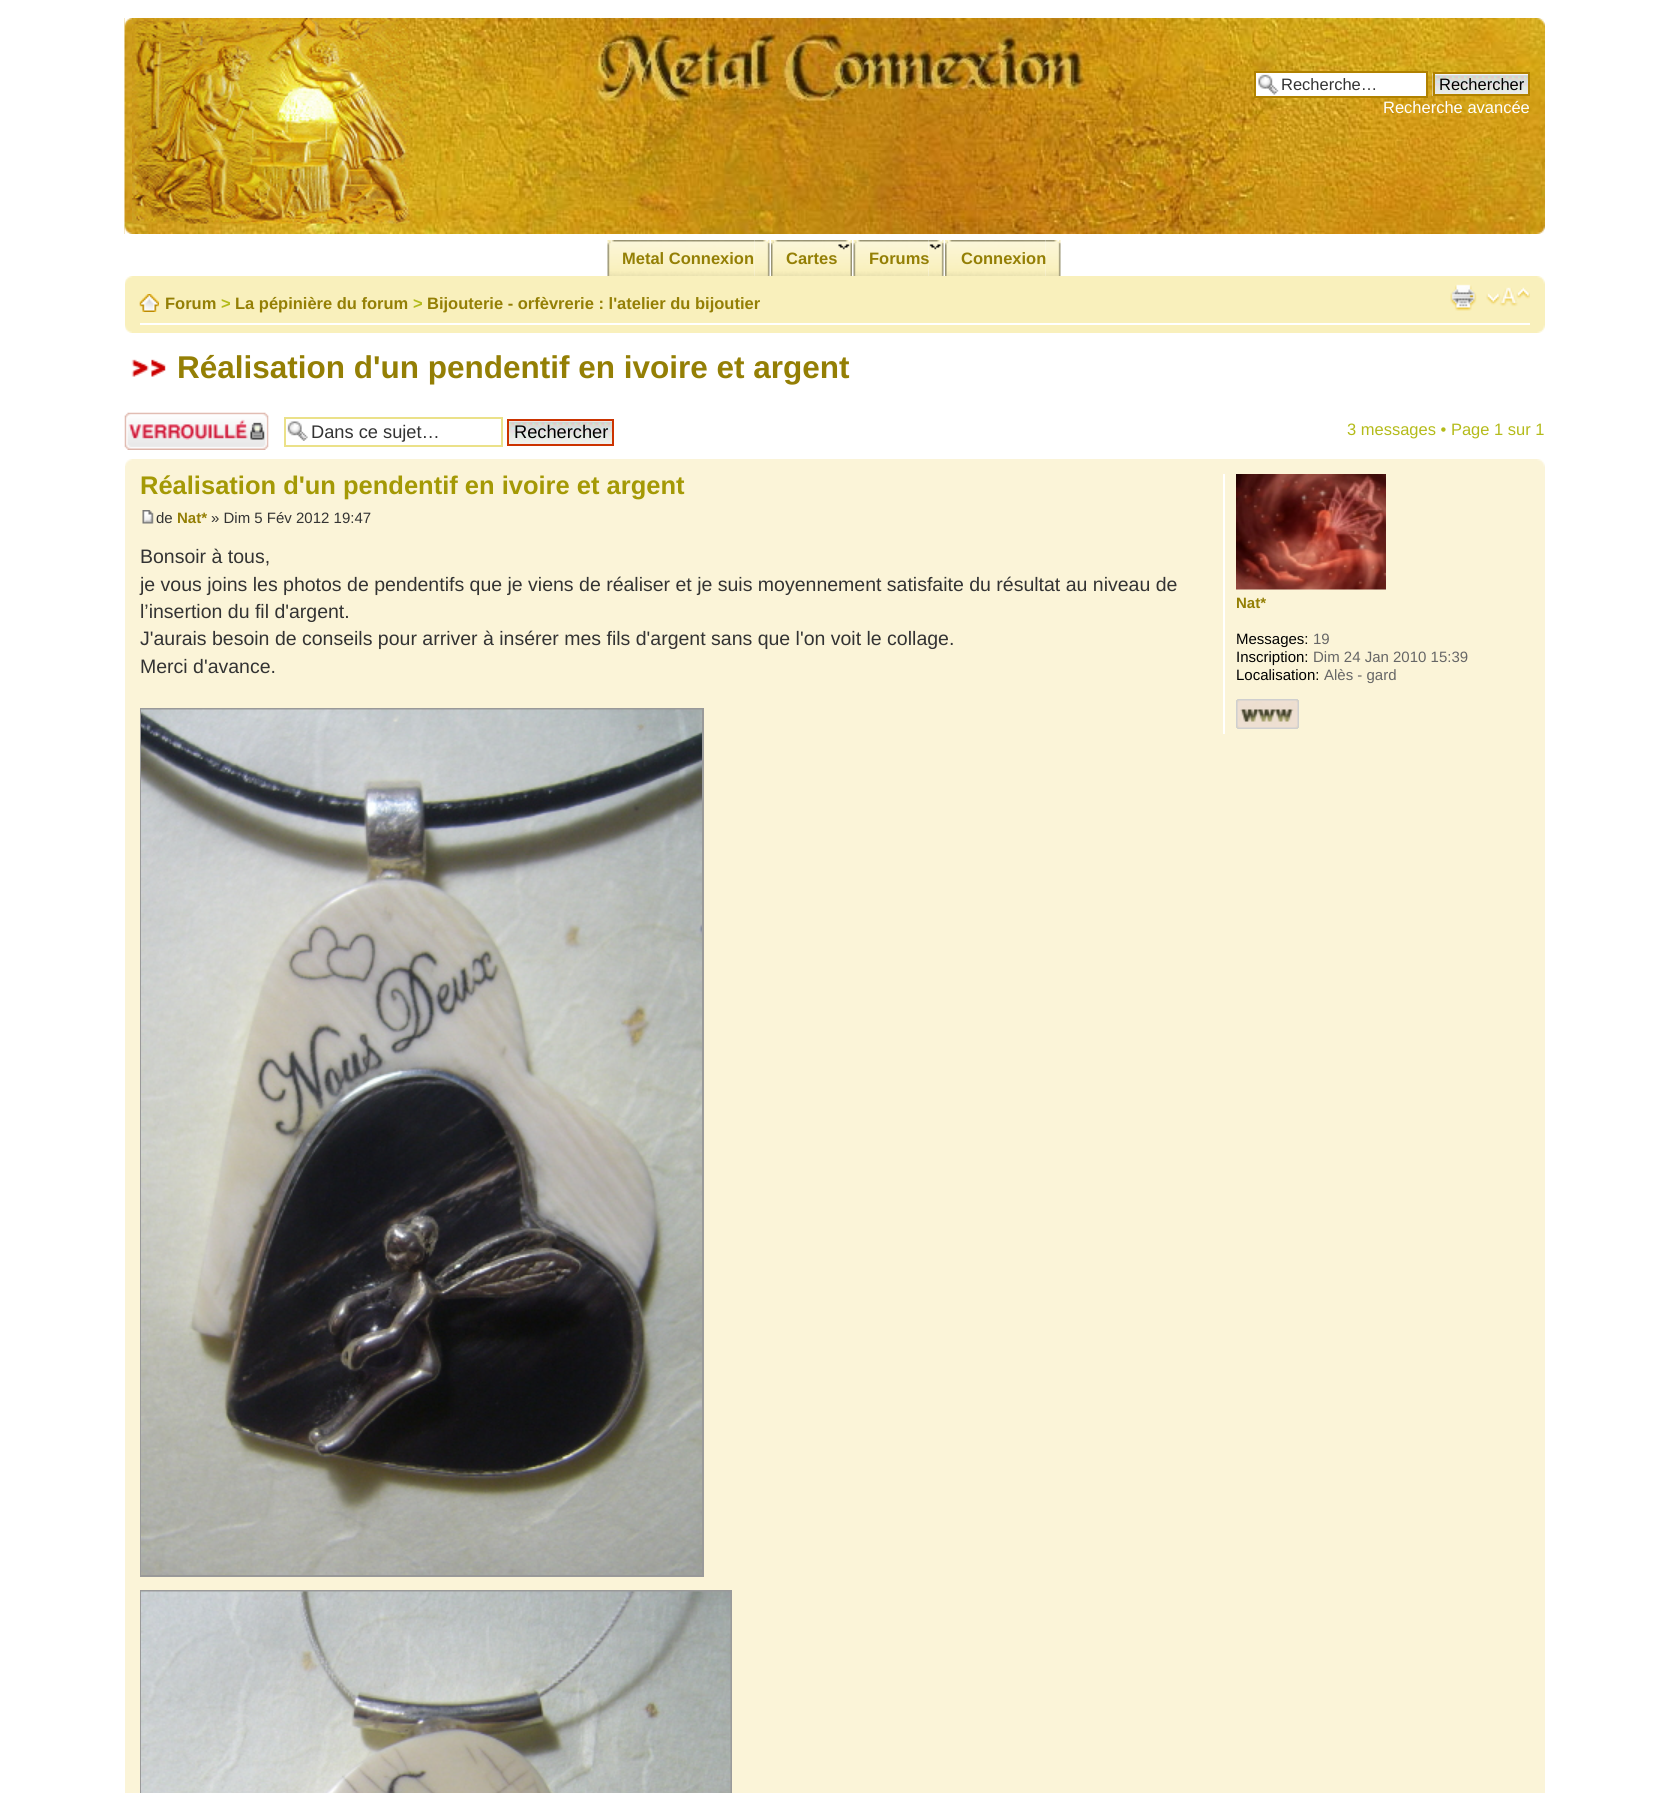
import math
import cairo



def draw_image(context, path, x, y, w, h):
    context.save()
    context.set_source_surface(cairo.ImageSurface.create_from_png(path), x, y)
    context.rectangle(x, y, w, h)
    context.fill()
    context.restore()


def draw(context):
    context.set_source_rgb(1, 1, 1)
    context.paint()
    draw_image(context, "images/1.png", 124, 18, 1421, 216)
    draw_image(context, "images/2.png", 124, 18, 8, 8)
    draw_image(context, "images/3.png", 1536, 18, 9, 8)
    draw_image(context, "images/4.png", 132, 18, 278, 206)
    context.set_source_rgb(1, 1, 1)
    context.rectangle(1256, 73, 170, 23)
    context.fill()
    draw_image(context, "images/5.png", 1258, 74, 21, 21)
    context.rectangle(1255, 72, 172, 25)
    context.set_source_rgb(176 / 255, 129 / 255, 0)
    context.stroke()
    draw_image(context, "images/6.png", 1432, 73, 96, 23)
    context.rectangle(1434, 73, 95, 22)
    context.stroke()
    draw_image(context, "images/7.png", 124, 226, 9, 8)
    draw_image(context, "images/8.png", 1537, 226, 8, 8)
    draw_image(context, "images/9.png", 754, 240, 16, 36)
    draw_image(context, "images/10.png", 607, 240, 148, 36)
    draw_image(context, "images/11.png", 837, 240, 15, 36)
    draw_image(context, "images/12.png", 771, 240, 66, 36)
    draw_image(context, "images/13.png", 928, 240, 16, 36)
    draw_image(context, "images/14.png", 853, 240, 76, 36)
    draw_image(context, "images/15.png", 1045, 240, 16, 36)
    draw_image(context, "images/16.png", 945, 240, 101, 36)
    context.set_source_rgb(249 / 255, 240 / 255, 188 / 255)
    context.rectangle(125, 276, 1420, 57)
    context.fill()
    draw_image(context, "images/17.png", 125, 276, 8, 8)
    draw_image(context, "images/18.png", 1537, 276, 8, 8)
    context.set_source_rgb(1, 1, 1)
    context.rectangle(140, 323, 1390, 2)
    context.fill()
    draw_image(context, "images/19.png", 139, 294, 20, 18)
    draw_image(context, "images/20.png", 1450, 284, 27, 27)
    draw_image(context, "images/21.png", 1486, 287, 44, 20)
    draw_image(context, "images/22.png", 125, 325, 7, 8)
    draw_image(context, "images/23.png", 1537, 325, 8, 8)
    draw_image(context, "images/24.png", 131, 359, 35, 18)
    draw_image(context, "images/25.png", 124, 412, 145, 38)
    draw_image(context, "images/26.png", 287, 421, 21, 20)
    context.rectangle(285, 418, 217, 28)
    context.set_source_rgb(235 / 255, 225 / 255, 137 / 255)
    context.stroke()
    draw_image(context, "images/27.png", 509, 421, 103, 23)
    context.rectangle(508, 420, 105, 25)
    context.set_source_rgb(204 / 255, 51 / 255, 0)
    context.stroke()
    context.set_source_rgb(251 / 255, 244 / 255, 216 / 255)
    context.rectangle(125, 459, 1420, 1334)
    context.fill()
    draw_image(context, "images/28.png", 125, 459, 7, 7)
    draw_image(context, "images/29.png", 1537, 459, 8, 8)
    draw_image(context, "images/30.png", 142, 510, 12, 14)
    context.rectangle(141, 709, 562, 867)
    context.set_source_rgb(153 / 255, 153 / 255, 153 / 255)
    context.stroke()
    draw_image(context, "images/31.png", 141, 709, 561, 866)
    context.rectangle(141, 1591, 590, 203)
    context.stroke()
    draw_image(context, "images/32.png", 141, 1591, 590, 202)
    context.set_source_rgb(1, 1, 1)
    context.rectangle(1223, 474, 2, 260)
    context.fill()
    draw_image(context, "images/33.png", 1236, 474, 150, 116)
    draw_image(context, "images/34.png", 1236, 699, 63, 30)
    draw_image(context, "images/35.png", 1236, 699, 63, 30)
    context.select_font_face("Liberation Sans")
    context.set_font_size(16.5)
    context.set_source_rgb(51 / 255, 51 / 255, 51 / 255)
    context.move_to(1281, 90)
    context.show_text("Recherche…")
    context.set_source_rgb(0, 0, 0)
    context.move_to(1439, 90)
    context.show_text("Rechercher")
    context.set_source_rgb(1, 1, 1)
    context.move_to(1383, 113)
    context.show_text("Recherche avancée")
    context.select_font_face("Liberation Sans", cairo.FontSlant.NORMAL, cairo.FontWeight.BOLD)
    context.set_source_rgb(148 / 255, 127 / 255, 5 / 255)
    context.move_to(622, 264)
    context.show_text("Metal Connexion")
    context.move_to(786, 264)
    context.show_text("Cartes")
    context.move_to(869, 264)
    context.show_text("Forums")
    context.move_to(961, 264)
    context.show_text("Connexion")
    context.move_to(165, 309)
    context.show_text("Forum")
    context.set_source_rgb(180 / 255, 187 / 255, 26 / 255)
    context.move_to(221, 309)
    context.show_text(">")
    context.set_source_rgb(148 / 255, 127 / 255, 5 / 255)
    context.move_to(235, 309)
    context.show_text("La pépinière du forum")
    context.set_source_rgb(180 / 255, 187 / 255, 26 / 255)
    context.move_to(413, 309)
    context.show_text(">")
    context.set_source_rgb(148 / 255, 127 / 255, 5 / 255)
    context.move_to(427, 309)
    context.show_text("Bijouterie - orfèvrerie : l'atelier du bijoutier")
    context.set_font_size(31.5)
    context.move_to(177, 378)
    context.show_text("Réalisation d'un pendentif en ivoire et argent")
    context.select_font_face("Liberation Sans")
    context.set_font_size(18.25)
    context.set_source_rgb(51 / 255, 51 / 255, 51 / 255)
    context.move_to(311, 438)
    context.show_text("Dans ce sujet…")
    context.set_source_rgb(0, 0, 0)
    context.move_to(514, 438)
    context.show_text("Rechercher")
    context.set_font_size(16.5)
    context.set_source_rgb(180 / 255, 187 / 255, 26 / 255)
    context.move_to(1347, 435)
    context.show_text("3 messages • Page 1 sur 1")
    context.select_font_face("Liberation Sans", cairo.FontSlant.NORMAL, cairo.FontWeight.BOLD)
    context.set_font_size(25.5)
    context.set_source_rgb(164 / 255, 153 / 255, 5 / 255)
    context.move_to(140, 494)
    context.show_text("Réalisation d'un pendentif en ivoire et argent")
    context.select_font_face("Liberation Sans")
    context.set_font_size(15)
    context.set_source_rgb(51 / 255, 51 / 255, 51 / 255)
    context.move_to(156, 523)
    context.show_text("de")
    context.select_font_face("Liberation Sans", cairo.FontSlant.NORMAL, cairo.FontWeight.BOLD)
    context.set_source_rgb(148 / 255, 127 / 255, 5 / 255)
    context.move_to(177, 523)
    context.show_text("Nat*")
    context.select_font_face("Liberation Sans")
    context.set_source_rgb(51 / 255, 51 / 255, 51 / 255)
    context.move_to(211, 523)
    context.show_text("» Dim 5 Fév 2012 19:47")
    context.set_font_size(19.5)
    context.move_to(140, 563)
    context.show_text("Bonsoir à tous,")
    context.move_to(140, 591)
    context.show_text("je vous joins les photos de pendentifs que je viens de réaliser et je suis moyennement satisfaite du résultat au niveau de")
    context.move_to(140, 618)
    context.show_text("l’insertion du fil d'argent.")
    context.move_to(140, 645)
    context.show_text("J'aurais besoin de conseils pour arriver à insérer mes fils d'argent sans que l'on voit le collage.")
    context.move_to(140, 673)
    context.show_text("Merci d'avance.")
    context.select_font_face("Liberation Sans", cairo.FontSlant.NORMAL, cairo.FontWeight.BOLD)
    context.set_font_size(15)
    context.set_source_rgb(148 / 255, 127 / 255, 5 / 255)
    context.move_to(1236, 608)
    context.show_text("Nat*")
    context.select_font_face("Liberation Sans")
    context.set_source_rgb(0, 0, 0)
    context.move_to(1236, 644)
    context.show_text("Messages:")
    context.set_source_rgb(102 / 255, 102 / 255, 102 / 255)
    context.move_to(1313, 644)
    context.show_text("19")
    context.set_source_rgb(0, 0, 0)
    context.move_to(1236, 662)
    context.show_text("Inscription:")
    context.set_source_rgb(102 / 255, 102 / 255, 102 / 255)
    context.move_to(1313, 662)
    context.show_text("Dim 24 Jan 2010 15:39")
    context.set_source_rgb(0, 0, 0)
    context.move_to(1236, 680)
    context.show_text("Localisation:")
    context.set_source_rgb(102 / 255, 102 / 255, 102 / 255)
    context.move_to(1324, 680)
    context.show_text("Alès - gard")


surface = cairo.ImageSurface(cairo.Format.RGB24, 1669, 1793)
context = cairo.Context(surface)
options = cairo.FontOptions()
options.set_hint_metrics(cairo.HintMetrics.OFF)
options.set_hint_style(cairo.HintStyle.NONE)
context.set_font_options(options)
context.set_miter_limit(4)
draw(context)
surface.write_to_png("out.png")
